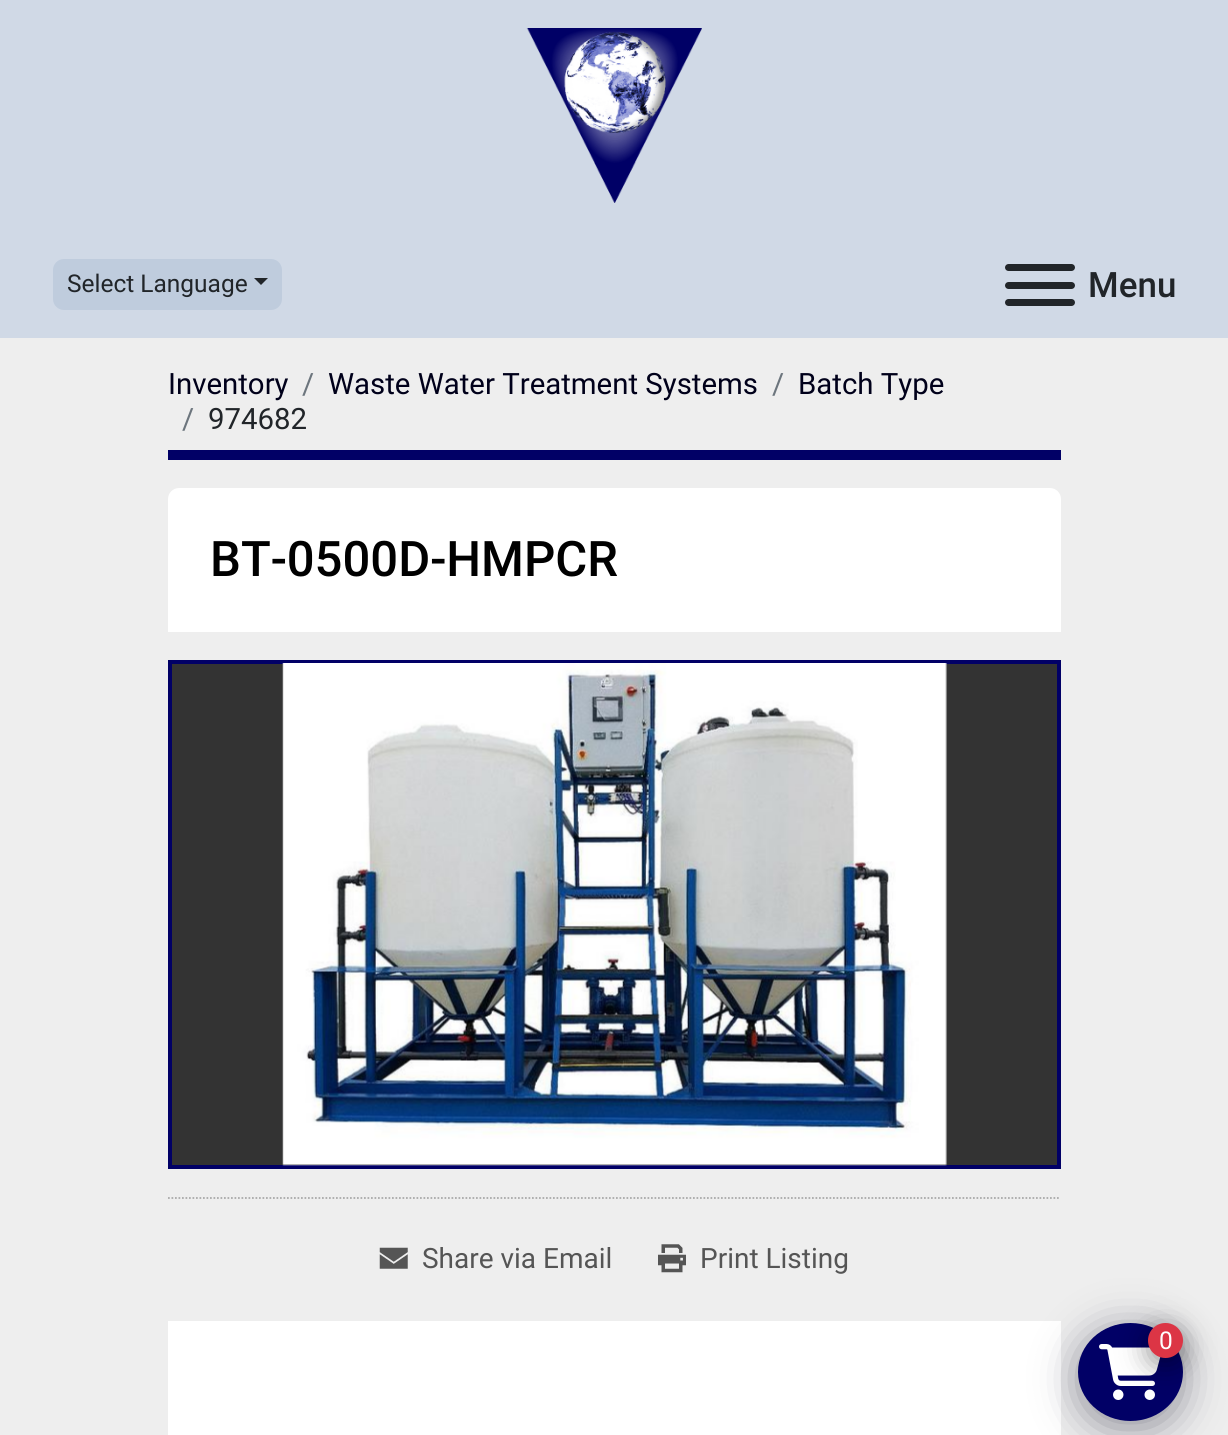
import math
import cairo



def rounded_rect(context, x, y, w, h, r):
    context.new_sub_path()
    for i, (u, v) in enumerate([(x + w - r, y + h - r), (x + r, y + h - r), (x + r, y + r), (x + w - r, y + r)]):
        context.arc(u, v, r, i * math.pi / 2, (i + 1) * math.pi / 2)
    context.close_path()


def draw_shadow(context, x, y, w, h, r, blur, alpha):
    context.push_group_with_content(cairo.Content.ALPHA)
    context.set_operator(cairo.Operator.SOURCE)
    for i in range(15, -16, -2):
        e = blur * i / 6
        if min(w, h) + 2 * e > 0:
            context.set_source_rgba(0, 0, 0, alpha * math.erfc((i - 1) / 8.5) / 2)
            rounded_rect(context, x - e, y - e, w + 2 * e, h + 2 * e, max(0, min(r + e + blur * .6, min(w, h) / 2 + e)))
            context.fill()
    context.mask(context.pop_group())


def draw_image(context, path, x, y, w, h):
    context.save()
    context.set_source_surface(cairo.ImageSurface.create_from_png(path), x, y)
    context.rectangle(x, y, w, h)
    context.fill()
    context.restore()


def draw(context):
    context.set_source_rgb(238 / 255, 238 / 255, 238 / 255)
    context.paint()
    context.set_source_rgb(208 / 255, 217 / 255, 230 / 255)
    context.rectangle(0, 0, 1228, 338)
    context.fill()
    draw_image(context, "images/1.png", 526, 28, 176, 175)
    context.set_source_rgb(191 / 255, 204 / 255, 221 / 255)
    rounded_rect(context, 53, 259, 229, 51, 11)
    context.fill()
    context.set_source_rgb(33 / 255, 37 / 255, 41 / 255)
    context.new_path()
    context.move_to(254, 278)
    context.line_to(268, 278)
    context.line_to(261, 285)
    context.close_path()
    context.fill()
    rounded_rect(context, 1005, 282, 70, 7, 3.5)
    context.fill()
    rounded_rect(context, 1005, 264, 70, 7, 3.5)
    context.fill()
    rounded_rect(context, 1005, 299, 70, 7, 3.5)
    context.fill()
    context.set_source_rgb(1 / 255, 0, 102 / 255)
    context.rectangle(168, 450, 893, 10)
    context.fill()
    context.set_source_rgb(1, 1, 1)
    context.new_path()
    context.move_to(179, 488)
    context.line_to(1050, 488)
    context.curve_to(1056, 488, 1061, 493, 1061, 499)
    context.line_to(1061, 632)
    context.line_to(168, 632)
    context.line_to(168, 499)
    context.curve_to(168, 493, 173, 488, 179, 488)
    context.close_path()
    context.fill()
    context.set_source_rgb(51 / 255, 51 / 255, 51 / 255)
    context.rectangle(170, 662, 889, 505)
    context.fill_preserve()
    context.set_source_rgb(1 / 255, 0, 102 / 255)
    context.set_line_width(4)
    context.stroke()
    draw_image(context, "images/2.png", 282, 663, 665, 503)
    context.new_path()
    context.move_to(168, 1198)
    context.line_to(1060.5, 1198)
    context.set_source_rgb(170 / 255, 170 / 255, 170 / 255)
    context.set_line_width(1.8)
    context.set_dash([1.75, 1.75])
    context.stroke()
    draw_image(context, "images/3.png", 379, 1247, 29, 22)
    draw_image(context, "images/4.png", 658, 1244, 28, 29)
    context.set_source_rgb(1, 1, 1)
    context.rectangle(168, 1321, 893, 114)
    context.fill()
    context.set_source_rgb(0, 0, 26 / 255)
    draw_shadow(context, 1078, 1330, 105, 98, 49, 21, 0.4)
    context.set_source_rgb(1 / 255, 0, 102 / 255)
    context.new_path()
    context.move_to(1130.5, 1323)
    context.curve_to(1159.5, 1323, 1183, 1345, 1183, 1372)
    context.curve_to(1183, 1399, 1159.5, 1421, 1130.5, 1421)
    context.curve_to(1101.5, 1421, 1078, 1399, 1078, 1372)
    context.curve_to(1078, 1345, 1101.5, 1323, 1130.5, 1323)
    context.close_path()
    context.fill()
    draw_image(context, "images/5.png", 1099, 1344, 62, 56)
    context.set_source_rgb(0, 0, 0)
    draw_shadow(context, 1148, 1330, 35, 35, 17.5, 14, 0.4)
    context.set_source_rgb(220 / 255, 53 / 255, 69 / 255)
    context.arc(1165.5, 1340.5, 17.5, 0, 2 * math.pi)
    context.fill()
    context.select_font_face("Roboto")
    context.set_font_size(24.5)
    context.set_source_rgb(33 / 255, 37 / 255, 41 / 255)
    context.move_to(67, 292)
    context.show_text("Select Language")
    context.select_font_face("Roboto Medium")
    context.set_font_size(35)
    context.move_to(1088, 297)
    context.show_text("Menu")
    context.select_font_face("Roboto")
    context.set_font_size(29.4)
    context.set_source_rgb(0, 0, 26 / 255)
    context.move_to(168, 394)
    context.show_text("Inventory")
    context.set_source_rgb(108 / 255, 117 / 255, 125 / 255)
    context.move_to(302, 394)
    context.show_text("/")
    context.set_source_rgb(0, 0, 26 / 255)
    context.move_to(328, 394)
    context.show_text("Waste Water Treatment Systems")
    context.set_source_rgb(108 / 255, 117 / 255, 125 / 255)
    context.move_to(772, 394)
    context.show_text("/")
    context.set_source_rgb(0, 0, 26 / 255)
    context.move_to(798, 394)
    context.show_text("Batch Type")
    context.set_source_rgb(108 / 255, 117 / 255, 125 / 255)
    context.move_to(182, 429)
    context.show_text("/")
    context.set_source_rgb(33 / 255, 37 / 255, 41 / 255)
    context.move_to(208, 429)
    context.show_text("974682")
    context.select_font_face("Roboto Medium")
    context.set_font_size(49)
    context.set_source_rgb(0, 0, 0)
    context.move_to(210, 576)
    context.show_text("BT-0500D-HMPCR")
    context.select_font_face("Roboto")
    context.set_font_size(28)
    context.set_source_rgb(85 / 255, 85 / 255, 85 / 255)
    context.move_to(422, 1268)
    context.show_text("Share via Email")
    context.move_to(700, 1268)
    context.show_text("Print Listing")
    context.set_font_size(24.5)
    context.set_source_rgb(1, 1, 1)
    context.move_to(1159, 1349)
    context.show_text("0")


surface = cairo.ImageSurface(cairo.Format.RGB24, 1228, 1435)
context = cairo.Context(surface)
options = cairo.FontOptions()
options.set_hint_metrics(cairo.HintMetrics.OFF)
options.set_hint_style(cairo.HintStyle.NONE)
context.set_font_options(options)
context.set_miter_limit(4)
draw(context)
surface.write_to_png("out.png")
